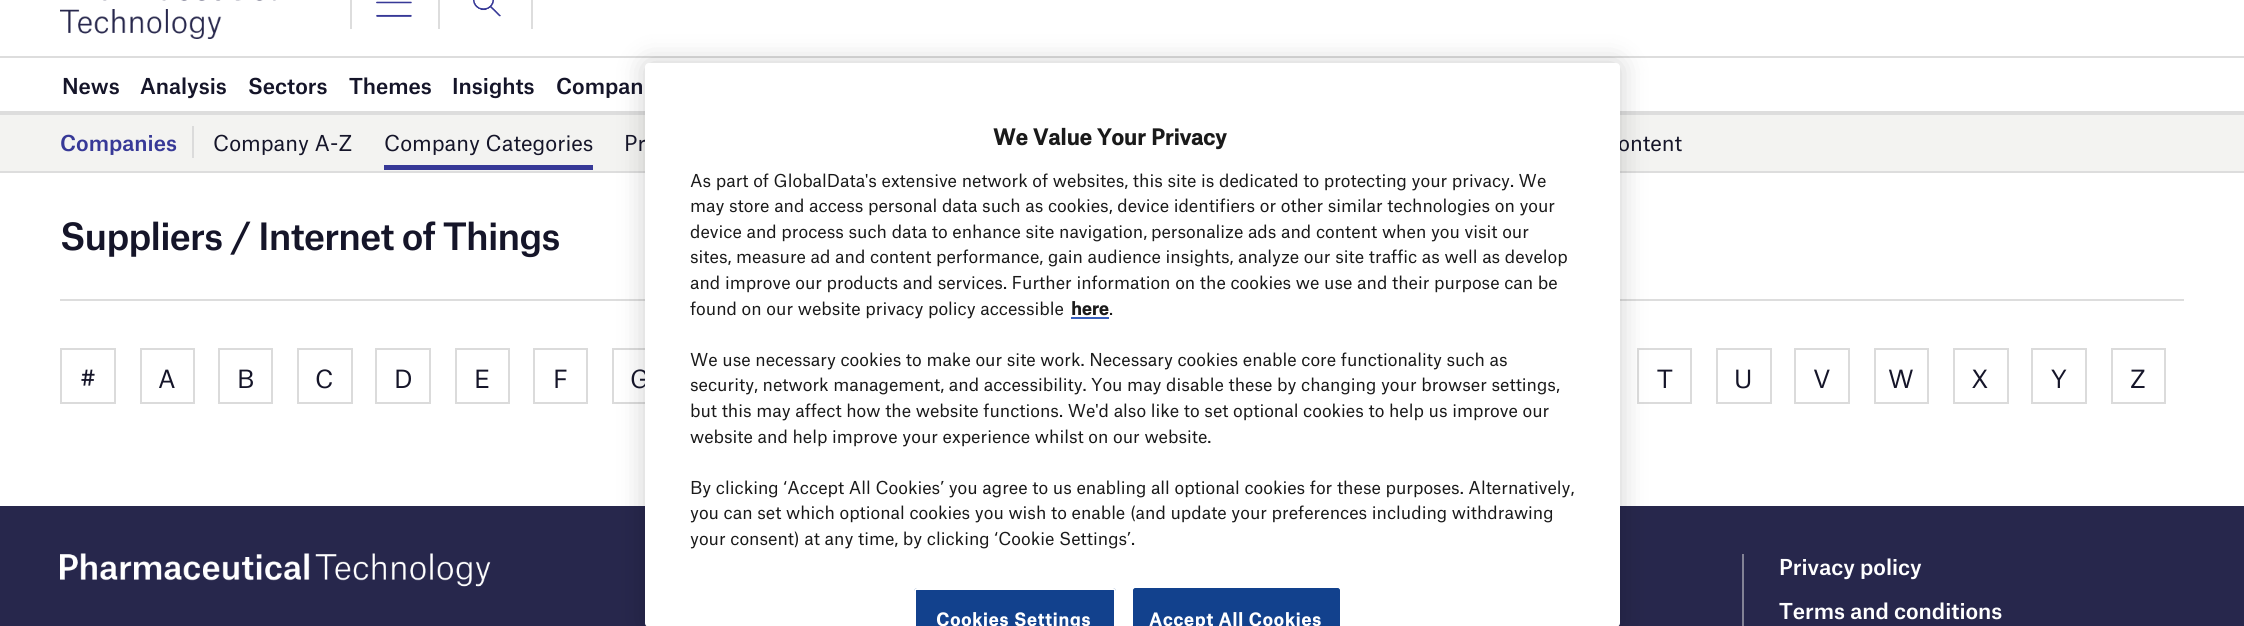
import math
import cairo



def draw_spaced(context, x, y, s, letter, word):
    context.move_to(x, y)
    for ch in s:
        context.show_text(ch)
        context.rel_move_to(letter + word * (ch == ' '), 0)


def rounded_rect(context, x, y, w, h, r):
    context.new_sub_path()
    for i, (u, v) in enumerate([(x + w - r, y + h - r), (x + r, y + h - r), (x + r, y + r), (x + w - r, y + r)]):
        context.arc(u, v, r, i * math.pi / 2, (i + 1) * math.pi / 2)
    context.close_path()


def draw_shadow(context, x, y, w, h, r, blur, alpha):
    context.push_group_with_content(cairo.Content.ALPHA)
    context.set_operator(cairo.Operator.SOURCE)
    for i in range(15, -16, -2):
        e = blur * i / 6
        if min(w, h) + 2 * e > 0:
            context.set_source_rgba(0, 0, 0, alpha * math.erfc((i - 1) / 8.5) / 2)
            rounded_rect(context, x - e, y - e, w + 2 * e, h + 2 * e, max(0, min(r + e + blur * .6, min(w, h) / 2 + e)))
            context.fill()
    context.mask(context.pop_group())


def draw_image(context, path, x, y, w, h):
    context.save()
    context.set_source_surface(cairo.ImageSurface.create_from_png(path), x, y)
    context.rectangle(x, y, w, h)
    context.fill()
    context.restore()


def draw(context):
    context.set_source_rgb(1, 1, 1)
    context.paint()
    draw_image(context, "images/1.png", 60, 0, 216, 39)
    draw_image(context, "images/2.png", 376, 1, 36, 16)
    context.set_source_rgb(221 / 255, 221 / 255, 221 / 255)
    context.rectangle(438, 0, 2, 29)
    context.fill()
    context.rectangle(350, 0, 2, 29)
    context.fill()
    draw_image(context, "images/3.png", 473, 0, 28, 17)
    context.rectangle(531, 0, 2, 29)
    context.fill()
    context.rectangle(0, 56, 2244, 2)
    context.fill()
    context.rectangle(0, 111, 2244, 4)
    context.fill()
    context.set_source_rgb(243 / 255, 243 / 255, 241 / 255)
    context.rectangle(0, 115, 2244, 56)
    context.fill()
    context.set_source_rgb(221 / 255, 221 / 255, 221 / 255)
    context.rectangle(0, 171, 2244, 2)
    context.fill()
    context.set_source_rgb(219 / 255, 219 / 255, 219 / 255)
    context.rectangle(192, 126, 2, 32)
    context.fill()
    context.set_source_rgb(55 / 255, 57 / 255, 151 / 255)
    context.rectangle(384, 165, 209, 5)
    context.fill()
    context.set_source_rgb(221 / 255, 221 / 255, 221 / 255)
    context.rectangle(60, 299, 2124, 2)
    context.fill()
    context.rectangle(613, 349, 54, 54)
    context.set_source_rgb(219 / 255, 219 / 255, 219 / 255)
    context.stroke()
    context.rectangle(1638, 349, 53, 54)
    context.stroke()
    context.set_source_rgb(39 / 255, 39 / 255, 76 / 255)
    context.rectangle(0, 506, 2244, 120)
    context.fill()
    context.set_source_rgb(0, 0, 0)
    draw_shadow(context, 645, 63, 975, 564, 4, 13.5, 0.2)
    context.rectangle(61, 349, 54, 54)
    context.set_source_rgb(219 / 255, 219 / 255, 219 / 255)
    context.stroke()
    context.rectangle(141, 349, 53, 54)
    context.stroke()
    context.rectangle(219, 349, 53, 54)
    context.stroke()
    context.rectangle(298, 349, 54, 54)
    context.stroke()
    context.rectangle(376, 349, 54, 54)
    context.stroke()
    context.rectangle(456, 349, 53, 54)
    context.stroke()
    context.rectangle(534, 349, 53, 54)
    context.stroke()
    context.rectangle(1717, 349, 54, 54)
    context.stroke()
    context.rectangle(1795, 349, 54, 54)
    context.stroke()
    context.rectangle(1875, 349, 53, 54)
    context.stroke()
    context.rectangle(1954, 349, 54, 54)
    context.stroke()
    context.rectangle(2032, 349, 54, 54)
    context.stroke()
    context.rectangle(2112, 349, 53, 54)
    context.stroke()
    draw_image(context, "images/4.png", 60, 553, 431, 34)
    context.set_source_rgb(130 / 255, 130 / 255, 149 / 255)
    context.rectangle(1742, 554, 2, 72)
    context.fill()
    context.select_font_face("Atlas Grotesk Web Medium")
    context.set_font_size(21)
    context.set_source_rgb(21 / 255, 21 / 255, 41 / 255)
    context.move_to(62, 94)
    context.show_text("News")
    context.move_to(140, 94)
    context.show_text("Analysis")
    context.move_to(248, 94)
    context.show_text("Sectors")
    context.move_to(349, 94)
    context.show_text("Themes")
    context.move_to(452, 94)
    context.show_text("Insights")
    context.move_to(556, 94)
    context.show_text("Compan")
    context.set_source_rgb(55 / 255, 57 / 255, 151 / 255)
    context.move_to(60, 151)
    context.show_text("Companies")
    context.select_font_face("Atlas Grotesk Web")
    context.set_source_rgb(21 / 255, 21 / 255, 41 / 255)
    context.move_to(213, 151)
    context.show_text("Company A-Z")
    context.move_to(384, 151)
    context.show_text("Company Categories")
    context.move_to(624, 151)
    context.show_text("Pr")
    context.move_to(1618, 151)
    context.show_text("ontent")
    context.select_font_face("Atlas Grotesk Web Medium")
    context.set_font_size(36)
    draw_spaced(context, 60, 250, "Suppliers / Internet of Things", -0.75, 0)
    context.select_font_face("Atlas Grotesk Web")
    context.set_font_size(24)
    context.move_to(80, 388)
    context.show_text("#")
    context.move_to(158, 388)
    context.show_text("A")
    context.move_to(237, 388)
    context.show_text("B")
    context.move_to(315, 388)
    context.show_text("C")
    context.move_to(394, 388)
    context.show_text("D")
    context.move_to(474, 388)
    context.show_text("E")
    context.move_to(553, 388)
    context.show_text("F")
    context.move_to(630, 388)
    context.show_text("G")
    context.set_source_rgb(1, 1, 1)
    rounded_rect(context, 645, 63, 975, 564, 4)
    context.fill()
    context.set_source_rgb(18 / 255, 65 / 255, 141 / 255)
    context.new_path()
    context.move_to(917, 588)
    context.line_to(1113, 588)
    context.curve_to(1114.5, 588, 1116, 589.5, 1116, 591)
    context.line_to(1116, 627)
    context.line_to(914, 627)
    context.line_to(914, 591)
    context.curve_to(914, 589.5, 915.5, 588, 917, 588)
    context.close_path()
    context.fill()
    context.set_source_rgb(1, 1, 1)
    context.new_path()
    context.move_to(917, 588)
    context.curve_to(915, 588, 914, 589, 914, 591)
    context.line_to(914, 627)
    context.line_to(916, 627)
    context.line_to(916, 591)
    context.curve_to(916, 590, 916, 590, 917, 590)
    context.line_to(1113, 590)
    context.curve_to(1114, 590, 1114, 590, 1114, 591)
    context.line_to(1114, 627)
    context.line_to(1116, 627)
    context.line_to(1116, 591)
    context.curve_to(1116, 589, 1115, 588, 1113, 588)
    context.close_path()
    context.fill()
    context.select_font_face("Atlas Grotesk Web", cairo.FontSlant.NORMAL, cairo.FontWeight.BOLD)
    context.set_font_size(17.07)
    draw_spaced(context, 936, 626, "Cookies Settings", 0.8, 0)
    context.set_source_rgb(18 / 255, 65 / 255, 141 / 255)
    context.new_path()
    context.move_to(1136, 588)
    context.line_to(1337, 588)
    context.curve_to(1338.5, 588, 1340, 589.5, 1340, 591)
    context.line_to(1340, 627)
    context.line_to(1133, 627)
    context.line_to(1133, 591)
    context.curve_to(1133, 589.5, 1134.5, 588, 1136, 588)
    context.close_path()
    context.fill()
    context.new_path()
    context.move_to(1136, 588)
    context.curve_to(1134, 588, 1133, 589, 1133, 591)
    context.line_to(1133, 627)
    context.line_to(1135, 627)
    context.line_to(1135, 591)
    context.curve_to(1135, 590, 1135, 590, 1136, 590)
    context.line_to(1337, 590)
    context.curve_to(1338, 590, 1338, 590, 1338, 591)
    context.line_to(1338, 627)
    context.line_to(1340, 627)
    context.line_to(1340, 591)
    context.curve_to(1340, 589, 1339, 588, 1337, 588)
    context.close_path()
    context.fill()
    context.set_source_rgb(1, 1, 1)
    draw_spaced(context, 1149, 626, "Accept All Cookies", 0.8, 0)
    context.select_font_face("Atlas Grotesk Web")
    context.set_source_rgb(26 / 255, 26 / 255, 26 / 255)
    context.move_to(690, 545)
    context.show_text("your consent) at any time, by clicking ‘Cookie Settings’.")
    context.move_to(690, 519)
    context.show_text("you can set which optional cookies you wish to enable (and update your preferences including withdrawing")
    context.move_to(690, 494)
    context.show_text("By clicking ‘Accept All Cookies’ you agree to us enabling all optional cookies for these purposes. Alternatively,")
    context.move_to(690, 443)
    context.show_text("website and help improve your experience whilst on our website.")
    context.move_to(690, 417)
    context.show_text("but this may affect how the website functions. We'd also like to set optional cookies to help us improve our")
    context.move_to(690, 391)
    context.show_text("security, network management, and accessibility. You may disable these by changing your browser settings,")
    context.move_to(690, 366)
    context.show_text("We use necessary cookies to make our site work. Necessary cookies enable core functionality such as")
    context.move_to(1109, 315)
    context.show_text(".")
    context.select_font_face("Atlas Grotesk Web", cairo.FontSlant.NORMAL, cairo.FontWeight.BOLD)
    context.move_to(1071, 315)
    context.show_text("here")
    context.set_source_rgb(56 / 255, 96 / 255, 190 / 255)
    context.rectangle(1071, 317, 38, 2)
    context.fill()
    context.select_font_face("Atlas Grotesk Web")
    context.set_source_rgb(26 / 255, 26 / 255, 26 / 255)
    context.move_to(690, 315)
    context.show_text("found on our website privacy policy accessible")
    context.move_to(690, 289)
    context.show_text("and improve our products and services. Further information on the cookies we use and their purpose can be")
    context.move_to(690, 263)
    context.show_text("sites, measure ad and content performance, gain audience insights, analyze our site traffic as well as develop")
    context.move_to(1151, 238)
    context.show_text("personalize ads and content when you visit our")
    context.move_to(690, 238)
    context.show_text("device and process such data to enhance site navigation,")
    context.move_to(690, 212)
    context.show_text("may store and access personal data such as cookies, device identifiers or other similar technologies on your")
    context.move_to(690, 187)
    context.show_text("As part of GlobalData's extensive network of websites, this site is dedicated to protecting your privacy. We")
    context.select_font_face("Atlas Grotesk Web", cairo.FontSlant.NORMAL, cairo.FontWeight.BOLD)
    context.set_font_size(21)
    context.move_to(993, 145)
    context.show_text("We Value Your Privacy")
    context.select_font_face("Atlas Grotesk Web")
    context.set_font_size(24)
    context.set_source_rgb(21 / 255, 21 / 255, 41 / 255)
    context.move_to(1657, 388)
    context.show_text("T")
    context.move_to(1734, 388)
    context.show_text("U")
    context.move_to(1813, 388)
    context.show_text("V")
    context.move_to(1888, 388)
    context.show_text("W")
    context.move_to(1971, 388)
    context.show_text("X")
    context.move_to(2051, 388)
    context.show_text("Y")
    context.move_to(2130, 388)
    context.show_text("Z")
    context.select_font_face("Atlas Grotesk Web Medium")
    context.set_font_size(21)
    context.set_source_rgb(1, 1, 1)
    context.move_to(1779, 575)
    context.show_text("Privacy policy")
    context.move_to(1779, 619)
    context.show_text("Terms and conditions")


surface = cairo.ImageSurface(cairo.Format.RGB24, 2244, 626)
context = cairo.Context(surface)
options = cairo.FontOptions()
options.set_hint_metrics(cairo.HintMetrics.OFF)
options.set_hint_style(cairo.HintStyle.NONE)
context.set_font_options(options)
context.set_miter_limit(4)
draw(context)
surface.write_to_png("out.png")
